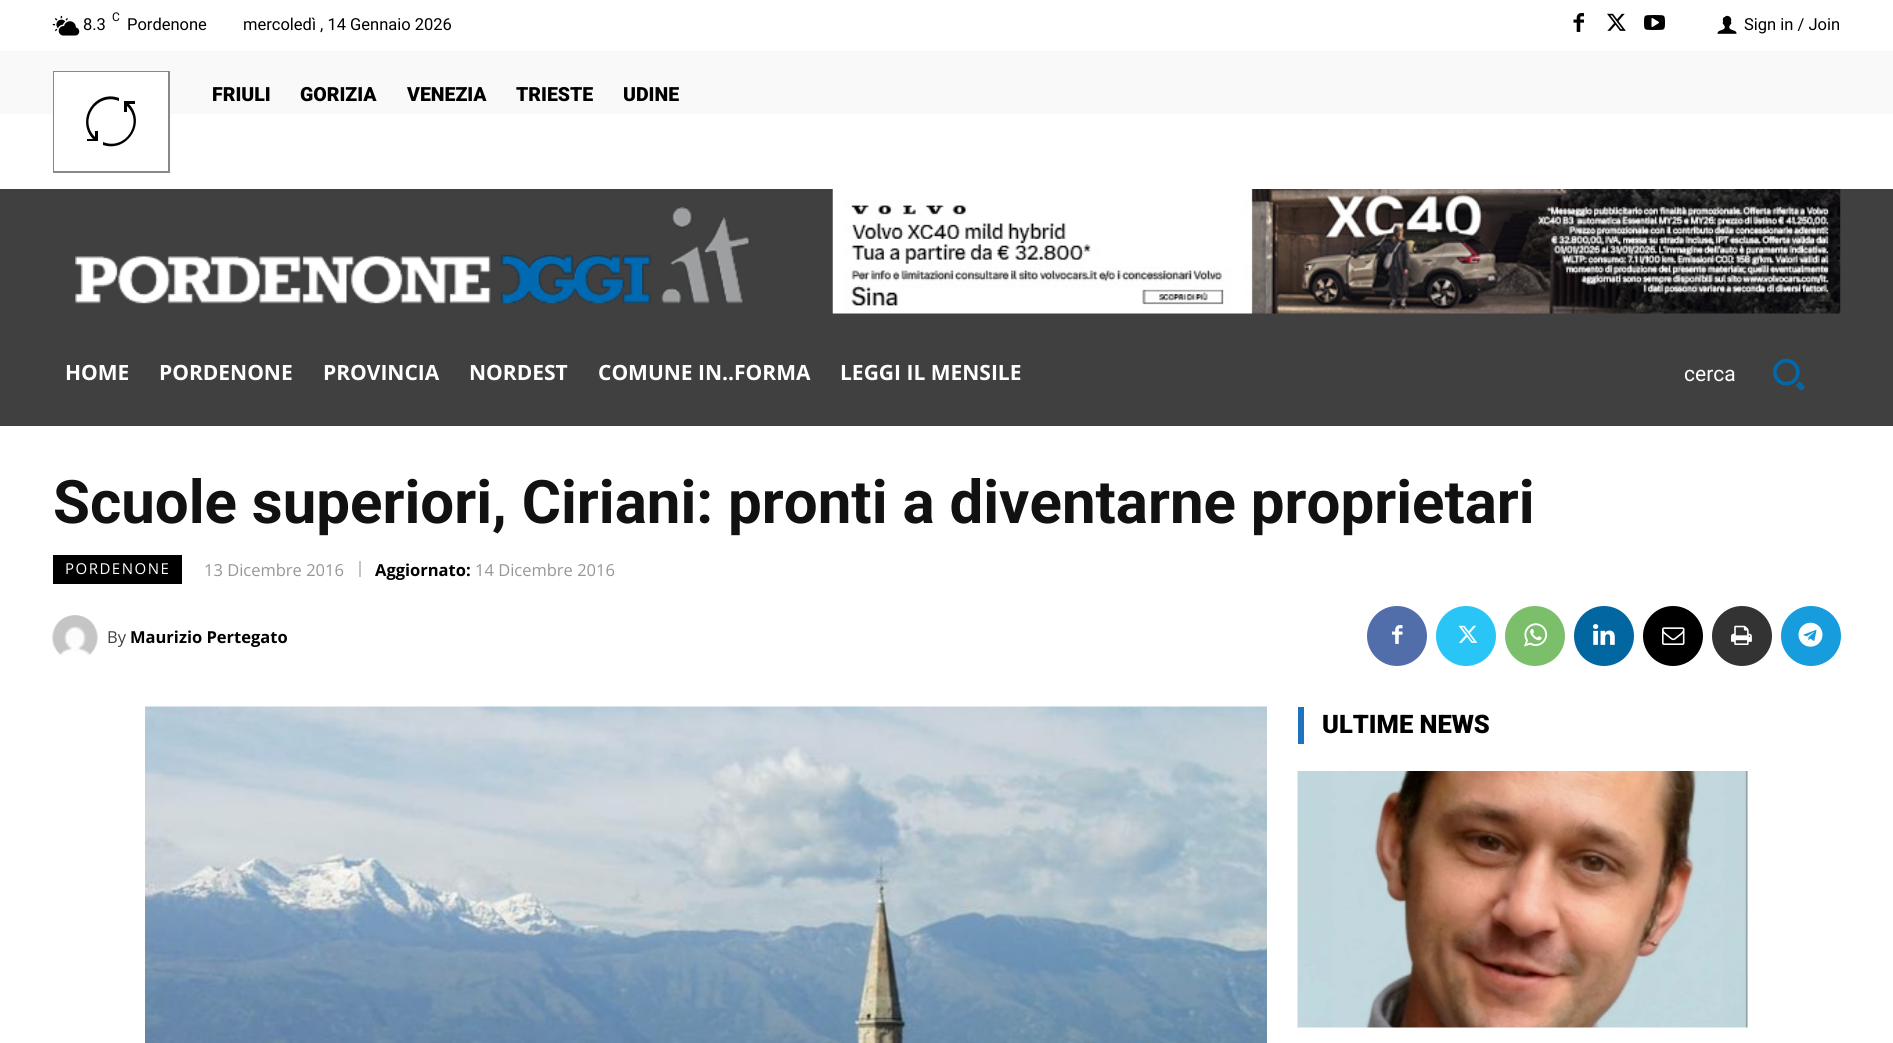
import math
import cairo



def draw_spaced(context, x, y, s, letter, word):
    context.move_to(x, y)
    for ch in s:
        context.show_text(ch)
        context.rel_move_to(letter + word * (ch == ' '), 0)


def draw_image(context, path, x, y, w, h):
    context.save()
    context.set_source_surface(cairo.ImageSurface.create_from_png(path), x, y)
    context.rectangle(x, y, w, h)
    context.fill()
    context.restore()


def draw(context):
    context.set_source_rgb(1, 1, 1)
    context.paint()
    draw_image(context, "images/1.png", 52, 15, 28, 21)
    draw_image(context, "images/2.png", 1573, 13, 11, 19)
    draw_image(context, "images/3.png", 1607, 13, 19, 18)
    draw_image(context, "images/4.png", 1644, 15, 21, 15)
    draw_image(context, "images/5.png", 1717, 15, 20, 19)
    context.set_source_rgb(249 / 255, 249 / 255, 249 / 255)
    context.rectangle(0, 51, 1893, 63)
    context.fill()
    context.rectangle(54, 72, 115, 100)
    context.set_source_rgb(136 / 255, 136 / 255, 136 / 255)
    context.stroke()
    context.set_source_rgb(1, 1, 1)
    context.rectangle(54, 72, 114, 99)
    context.fill()
    context.set_source_rgb(0, 0, 0)
    context.new_path()
    context.move_to(135, 104)
    context.line_to(135, 101)
    context.line_to(124, 101)
    context.line_to(124, 112)
    context.line_to(127, 112)
    context.line_to(127, 106)
    context.curve_to(144, 123, 125, 151, 103, 142)
    context.line_to(103, 145)
    context.curve_to(127, 153, 147, 123, 129, 104)
    context.close_path()
    context.move_to(95, 137)
    context.curve_to(78, 120, 97, 92, 119, 101)
    context.line_to(119, 98)
    context.curve_to(95, 89, 75, 120, 93, 139)
    context.line_to(87, 139)
    context.line_to(87, 141)
    context.line_to(98, 141)
    context.line_to(98, 131)
    context.line_to(95, 131)
    context.close_path()
    context.fill()
    context.set_source_rgb(64 / 255, 64 / 255, 64 / 255)
    context.rectangle(0, 189, 1893, 237)
    context.fill()
    draw_image(context, "images/6.png", 75, 207, 675, 97)
    draw_image(context, "images/7.png", 832, 189, 1009, 125)
    draw_image(context, "images/8.png", 1773, 358, 32, 33)
    context.set_source_rgb(0, 0, 0)
    context.rectangle(53, 555, 129, 29)
    context.fill()
    context.set_source_rgb(196 / 255, 196 / 255, 196 / 255)
    context.rectangle(359, 561, 2, 16)
    context.fill()
    draw_image(context, "images/9.png", 52, 615, 46, 40)
    context.set_source_rgb(81 / 255, 110 / 255, 171 / 255)
    context.arc(1397, 636, 30, 0, 2 * math.pi)
    context.fill()
    draw_image(context, "images/10.png", 1392, 625, 11, 19)
    context.set_source_rgb(41 / 255, 197 / 255, 246 / 255)
    context.arc(1466, 636, 30, 0, 2 * math.pi)
    context.fill()
    draw_image(context, "images/11.png", 1458, 625, 20, 18)
    context.set_source_rgb(123 / 255, 191 / 255, 106 / 255)
    context.arc(1535, 636, 30, 0, 2 * math.pi)
    context.fill()
    draw_image(context, "images/12.png", 1524, 623, 24, 24)
    context.set_source_rgb(2 / 255, 102 / 255, 160 / 255)
    context.arc(1604, 636, 30, 0, 2 * math.pi)
    context.fill()
    draw_image(context, "images/13.png", 1593, 624, 22, 21)
    context.set_source_rgb(0, 0, 0)
    context.arc(1673, 636, 30, 0, 2 * math.pi)
    context.fill()
    draw_image(context, "images/14.png", 1662, 627, 23, 18)
    context.set_source_rgb(51 / 255, 51 / 255, 51 / 255)
    context.arc(1742, 636, 30, 0, 2 * math.pi)
    context.fill()
    draw_image(context, "images/15.png", 1731, 625, 21, 20)
    context.set_source_rgb(23 / 255, 156 / 255, 222 / 255)
    context.arc(1811, 636, 30, 0, 2 * math.pi)
    context.fill()
    draw_image(context, "images/16.png", 1798, 622, 25, 25)
    draw_image(context, "images/17.png", 145, 706, 1122, 337)
    context.set_source_rgb(30 / 255, 115 / 255, 190 / 255)
    context.rectangle(1298, 707, 6, 37)
    context.fill()
    draw_image(context, "images/18.png", 1297, 771, 451, 257)
    context.select_font_face("Roboto")
    context.set_font_size(12)
    context.set_source_rgb(0, 0, 0)
    context.move_to(112, 21)
    context.show_text("C")
    context.set_font_size(16.5)
    context.move_to(83, 30)
    context.show_text("8.3")
    context.move_to(127, 30)
    context.show_text("Pordenone")
    context.move_to(243, 30)
    context.show_text("mercoledì , 14 Gennaio 2026")
    context.move_to(1744, 30)
    context.show_text("Sign in / Join")
    context.select_font_face("Roboto Black")
    context.set_font_size(19.5)
    context.move_to(212, 101)
    context.show_text("FRIULI")
    context.move_to(300, 101)
    context.show_text("GORIZIA")
    context.move_to(407, 101)
    context.show_text("VENEZIA")
    context.move_to(516, 101)
    context.show_text("TRIESTE")
    context.move_to(623, 101)
    context.show_text("UDINE")
    context.select_font_face("Open Sans", cairo.FontSlant.NORMAL, cairo.FontWeight.BOLD)
    context.set_font_size(21)
    context.set_source_rgb(1, 1, 1)
    context.move_to(65, 380)
    context.show_text("HOME")
    context.move_to(159, 380)
    context.show_text("PORDENONE")
    context.move_to(323, 380)
    context.show_text("PROVINCIA")
    context.move_to(469, 380)
    context.show_text("NORDEST")
    context.move_to(598, 380)
    context.show_text("COMUNE IN..FORMA")
    context.move_to(840, 380)
    context.show_text("LEGGI IL MENSILE")
    context.select_font_face("Roboto")
    context.move_to(1684, 381)
    context.show_text("cerca")
    context.select_font_face("Roboto", cairo.FontSlant.NORMAL, cairo.FontWeight.BOLD)
    context.set_font_size(60)
    context.set_source_rgb(17 / 255, 17 / 255, 17 / 255)
    context.move_to(53, 523)
    context.show_text("Scuole superiori, Ciriani: pronti a diventarne proprietari")
    context.select_font_face("Open Sans")
    context.set_font_size(15)
    context.set_source_rgb(1, 1, 1)
    draw_spaced(context, 65, 574, "PORDENONE", 1.5, 0)
    context.set_font_size(16.5)
    context.set_source_rgb(150 / 255, 150 / 255, 150 / 255)
    context.move_to(204, 576)
    context.show_text("13 Dicembre 2016")
    context.select_font_face("Open Sans", cairo.FontSlant.NORMAL, cairo.FontWeight.BOLD)
    context.set_source_rgb(0, 0, 0)
    context.move_to(375, 576)
    context.show_text("Aggiornato:")
    context.select_font_face("Open Sans")
    context.set_source_rgb(150 / 255, 150 / 255, 150 / 255)
    context.move_to(475, 576)
    context.show_text("14 Dicembre 2016")
    context.set_source_rgb(68 / 255, 68 / 255, 68 / 255)
    context.move_to(107, 643)
    context.show_text("By")
    context.select_font_face("Open Sans", cairo.FontSlant.NORMAL, cairo.FontWeight.BOLD)
    context.set_source_rgb(0, 0, 0)
    context.move_to(130, 643)
    context.show_text("Maurizio Pertegato")
    context.select_font_face("Roboto Black")
    context.set_font_size(25.5)
    context.move_to(1322, 733)
    context.show_text("ULTIME NEWS")


surface = cairo.ImageSurface(cairo.Format.RGB24, 1893, 1043)
context = cairo.Context(surface)
options = cairo.FontOptions()
options.set_hint_metrics(cairo.HintMetrics.OFF)
options.set_hint_style(cairo.HintStyle.NONE)
context.set_font_options(options)
context.set_miter_limit(4)
draw(context)
surface.write_to_png("out.png")
